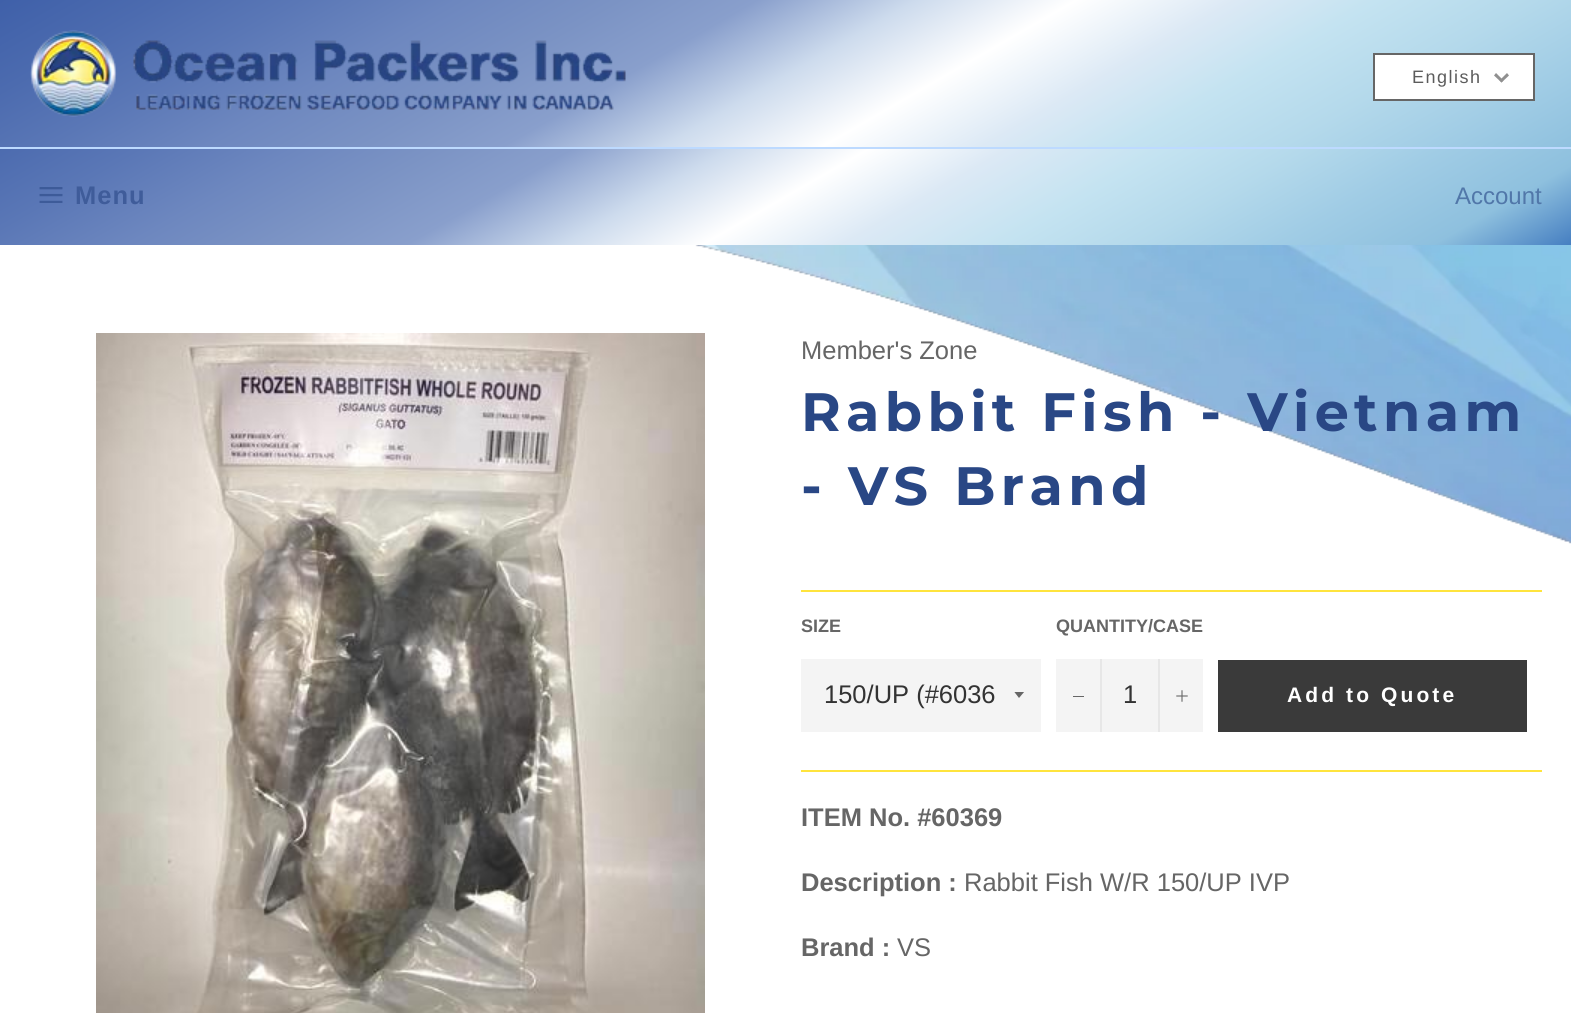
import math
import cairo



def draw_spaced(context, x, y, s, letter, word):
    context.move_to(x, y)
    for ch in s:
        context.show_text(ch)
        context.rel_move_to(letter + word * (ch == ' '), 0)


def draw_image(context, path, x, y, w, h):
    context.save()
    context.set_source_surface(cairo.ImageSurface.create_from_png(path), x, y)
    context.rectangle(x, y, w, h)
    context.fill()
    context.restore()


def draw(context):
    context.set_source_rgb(1, 1, 1)
    context.paint()
    gradient = cairo.LinearGradient(537, -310, 1035, 553)
    gradient.add_color_stop_rgba(0, 63 / 255, 96 / 255, 169 / 255, 1)
    gradient.add_color_stop_rgba(0.08, 76 / 255, 107 / 255, 175 / 255, 1)
    gradient.add_color_stop_rgba(0.15, 90 / 255, 119 / 255, 182 / 255, 1)
    gradient.add_color_stop_rgba(0.23, 109 / 255, 135 / 255, 191 / 255, 1)
    gradient.add_color_stop_rgba(0.31, 123 / 255, 147 / 255, 196 / 255, 1)
    gradient.add_color_stop_rgba(0.38, 137 / 255, 159 / 255, 204 / 255, 1)
    gradient.add_color_stop_rgba(0.46, 205 / 255, 219 / 255, 237 / 255, 1)
    gradient.add_color_stop_rgba(0.54, 1, 1, 1, 1)
    gradient.add_color_stop_rgba(0.62, 220 / 255, 233 / 255, 245 / 255, 1)
    gradient.add_color_stop_rgba(0.69, 196 / 255, 227 / 255, 241 / 255, 1)
    gradient.add_color_stop_rgba(0.77, 180 / 255, 217 / 255, 235 / 255, 1)
    gradient.add_color_stop_rgba(0.85, 160 / 255, 204 / 255, 229 / 255, 1)
    gradient.add_color_stop_rgba(0.92, 142 / 255, 192 / 255, 222 / 255, 1)
    gradient.add_color_stop_rgba(1, 69 / 255, 126 / 255, 193 / 255, 1)
    context.set_source(gradient)
    context.rectangle(0, 0, 1571, 147)
    context.fill()
    context.set_source_rgb(1, 1, 1)
    context.rectangle(1374, 54, 160, 46)
    context.fill_preserve()
    context.set_source_rgb(102 / 255, 102 / 255, 102 / 255)
    context.stroke()
    context.set_source_rgb(144 / 255, 144 / 255, 144 / 255)
    context.new_path()
    context.move_to(1507, 73)
    context.line_to(1509, 75.5)
    context.line_to(1501.5, 82.5)
    context.line_to(1499.5, 80.5)
    context.close_path()
    context.fill()
    context.new_path()
    context.move_to(1496, 73)
    context.line_to(1503.5, 80.5)
    context.line_to(1501.5, 82.5)
    context.line_to(1494, 75.5)
    context.close_path()
    context.fill()
    draw_image(context, "images/1.png", 30, 30, 596, 87)
    context.set_source_rgb(189 / 255, 218 / 255, 1)
    context.rectangle(0, 147, 1571, 2)
    context.fill()
    gradient = cairo.LinearGradient(569, -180, 1003, 573)
    gradient.add_color_stop_rgba(0, 76 / 255, 107 / 255, 175 / 255, 1)
    gradient.add_color_stop_rgba(0.08, 90 / 255, 119 / 255, 182 / 255, 1)
    gradient.add_color_stop_rgba(0.17, 109 / 255, 135 / 255, 191 / 255, 1)
    gradient.add_color_stop_rgba(0.25, 123 / 255, 147 / 255, 196 / 255, 1)
    gradient.add_color_stop_rgba(0.33, 137 / 255, 159 / 255, 204 / 255, 1)
    gradient.add_color_stop_rgba(0.42, 205 / 255, 219 / 255, 237 / 255, 1)
    gradient.add_color_stop_rgba(0.5, 1, 1, 1, 1)
    gradient.add_color_stop_rgba(0.58, 220 / 255, 233 / 255, 245 / 255, 1)
    gradient.add_color_stop_rgba(0.67, 196 / 255, 227 / 255, 241 / 255, 1)
    gradient.add_color_stop_rgba(0.75, 180 / 255, 217 / 255, 235 / 255, 1)
    gradient.add_color_stop_rgba(0.83, 160 / 255, 204 / 255, 229 / 255, 1)
    gradient.add_color_stop_rgba(0.92, 142 / 255, 192 / 255, 222 / 255, 1)
    gradient.add_color_stop_rgba(1, 69 / 255, 126 / 255, 193 / 255, 1)
    context.set_source(gradient)
    context.rectangle(0, 149, 1571, 96)
    context.fill()
    draw_image(context, "images/2.png", 39, 187, 24, 16)
    draw_image(context, "images/3.png", 695, 245, 876, 299)
    draw_image(context, "images/4.png", 96, 333, 609, 680)
    context.set_source_rgb(1, 228 / 255, 61 / 255)
    context.rectangle(801, 590, 741, 2)
    context.fill()
    context.set_source_rgb(244 / 255, 244 / 255, 244 / 255)
    context.rectangle(801, 659, 240, 73)
    context.fill()
    context.save()
    context.rectangle(1014, 692, 12, 7)
    context.clip()
    context.set_source_rgb(102 / 255, 102 / 255, 102 / 255)
    context.new_path()
    context.move_to(1014, 691.5)
    context.line_to(1019, 698)
    context.line_to(1024.5, 691.5)
    context.close_path()
    context.fill()
    context.restore()
    context.rectangle(1056, 659, 147, 73)
    context.fill()
    context.set_source_rgb(231 / 255, 231 / 255, 231 / 255)
    context.rectangle(1100, 659, 2, 73)
    context.fill()
    context.set_source_rgb(102 / 255, 102 / 255, 102 / 255)
    context.rectangle(1073, 696, 11, 1)
    context.fill()
    context.set_source_rgb(231 / 255, 231 / 255, 231 / 255)
    context.rectangle(1158, 659, 2, 73)
    context.fill()
    draw_image(context, "images/5.png", 1176, 690, 12, 12)
    context.set_source_rgb(58 / 255, 58 / 255, 58 / 255)
    context.rectangle(1218, 660, 309, 72)
    context.fill()
    context.set_source_rgb(1, 228 / 255, 61 / 255)
    context.rectangle(801, 770, 741, 2)
    context.fill()
    context.select_font_face("Liberation Sans")
    context.set_font_size(18)
    context.set_source_rgb(92 / 255, 92 / 255, 92 / 255)
    draw_spaced(context, 1412, 83, "English", 1.5, 0)
    context.select_font_face("Arimo", cairo.FontSlant.NORMAL, cairo.FontWeight.BOLD)
    context.set_font_size(25.5)
    context.set_source_rgb(63 / 255, 92 / 255, 154 / 255)
    draw_spaced(context, 75, 204, "Menu", 1, 0)
    context.select_font_face("Arimo")
    context.set_font_size(24)
    context.set_source_rgb(81 / 255, 119 / 255, 169 / 255)
    context.move_to(1455, 204)
    context.show_text("Account")
    context.set_font_size(25.5)
    context.set_source_rgb(102 / 255, 102 / 255, 102 / 255)
    context.move_to(801, 359)
    context.show_text("Member's Zone")
    context.select_font_face("Montserrat", cairo.FontSlant.NORMAL, cairo.FontWeight.BOLD)
    context.set_font_size(54)
    context.set_source_rgb(41 / 255, 71 / 255, 133 / 255)
    draw_spaced(context, 801, 431, "Rabbit Fish - Vietnam", 5.4, 0)
    draw_spaced(context, 801, 505, "- VS Brand", 5.4, 0)
    context.select_font_face("Arimo", cairo.FontSlant.NORMAL, cairo.FontWeight.BOLD)
    context.set_font_size(18)
    context.set_source_rgb(102 / 255, 102 / 255, 102 / 255)
    context.move_to(801, 632)
    context.show_text("SIZE")
    context.select_font_face("Arimo")
    context.set_font_size(25.5)
    context.set_source_rgb(51 / 255, 51 / 255, 51 / 255)
    context.move_to(824, 703)
    context.show_text("150/UP (#6036")
    context.select_font_face("Arimo", cairo.FontSlant.NORMAL, cairo.FontWeight.BOLD)
    context.set_font_size(18)
    context.set_source_rgb(102 / 255, 102 / 255, 102 / 255)
    context.move_to(1056, 632)
    context.show_text("QUANTITY/CASE")
    context.select_font_face("Arimo")
    context.set_font_size(25.5)
    context.set_source_rgb(51 / 255, 51 / 255, 51 / 255)
    context.move_to(1123, 703)
    context.show_text("1")
    context.select_font_face("Arimo", cairo.FontSlant.NORMAL, cairo.FontWeight.BOLD)
    context.set_font_size(21)
    context.set_source_rgb(1, 1, 1)
    draw_spaced(context, 1287, 702, "Add to Quote", 3.1, 0)
    context.set_font_size(25.5)
    context.set_source_rgb(102 / 255, 102 / 255, 102 / 255)
    context.move_to(801, 826)
    context.show_text("ITEM No. #60369")
    context.move_to(801, 891)
    context.show_text("Description :")
    context.select_font_face("Arimo")
    context.move_to(964, 891)
    context.show_text("Rabbit Fish W/R 150/UP IVP")
    context.select_font_face("Arimo", cairo.FontSlant.NORMAL, cairo.FontWeight.BOLD)
    context.move_to(801, 956)
    context.show_text("Brand :")
    context.select_font_face("Arimo")
    context.move_to(897, 956)
    context.show_text("VS")


surface = cairo.ImageSurface(cairo.Format.RGB24, 1571, 1013)
context = cairo.Context(surface)
options = cairo.FontOptions()
options.set_hint_metrics(cairo.HintMetrics.OFF)
options.set_hint_style(cairo.HintStyle.NONE)
context.set_font_options(options)
context.set_miter_limit(4)
draw(context)
surface.write_to_png("out.png")
